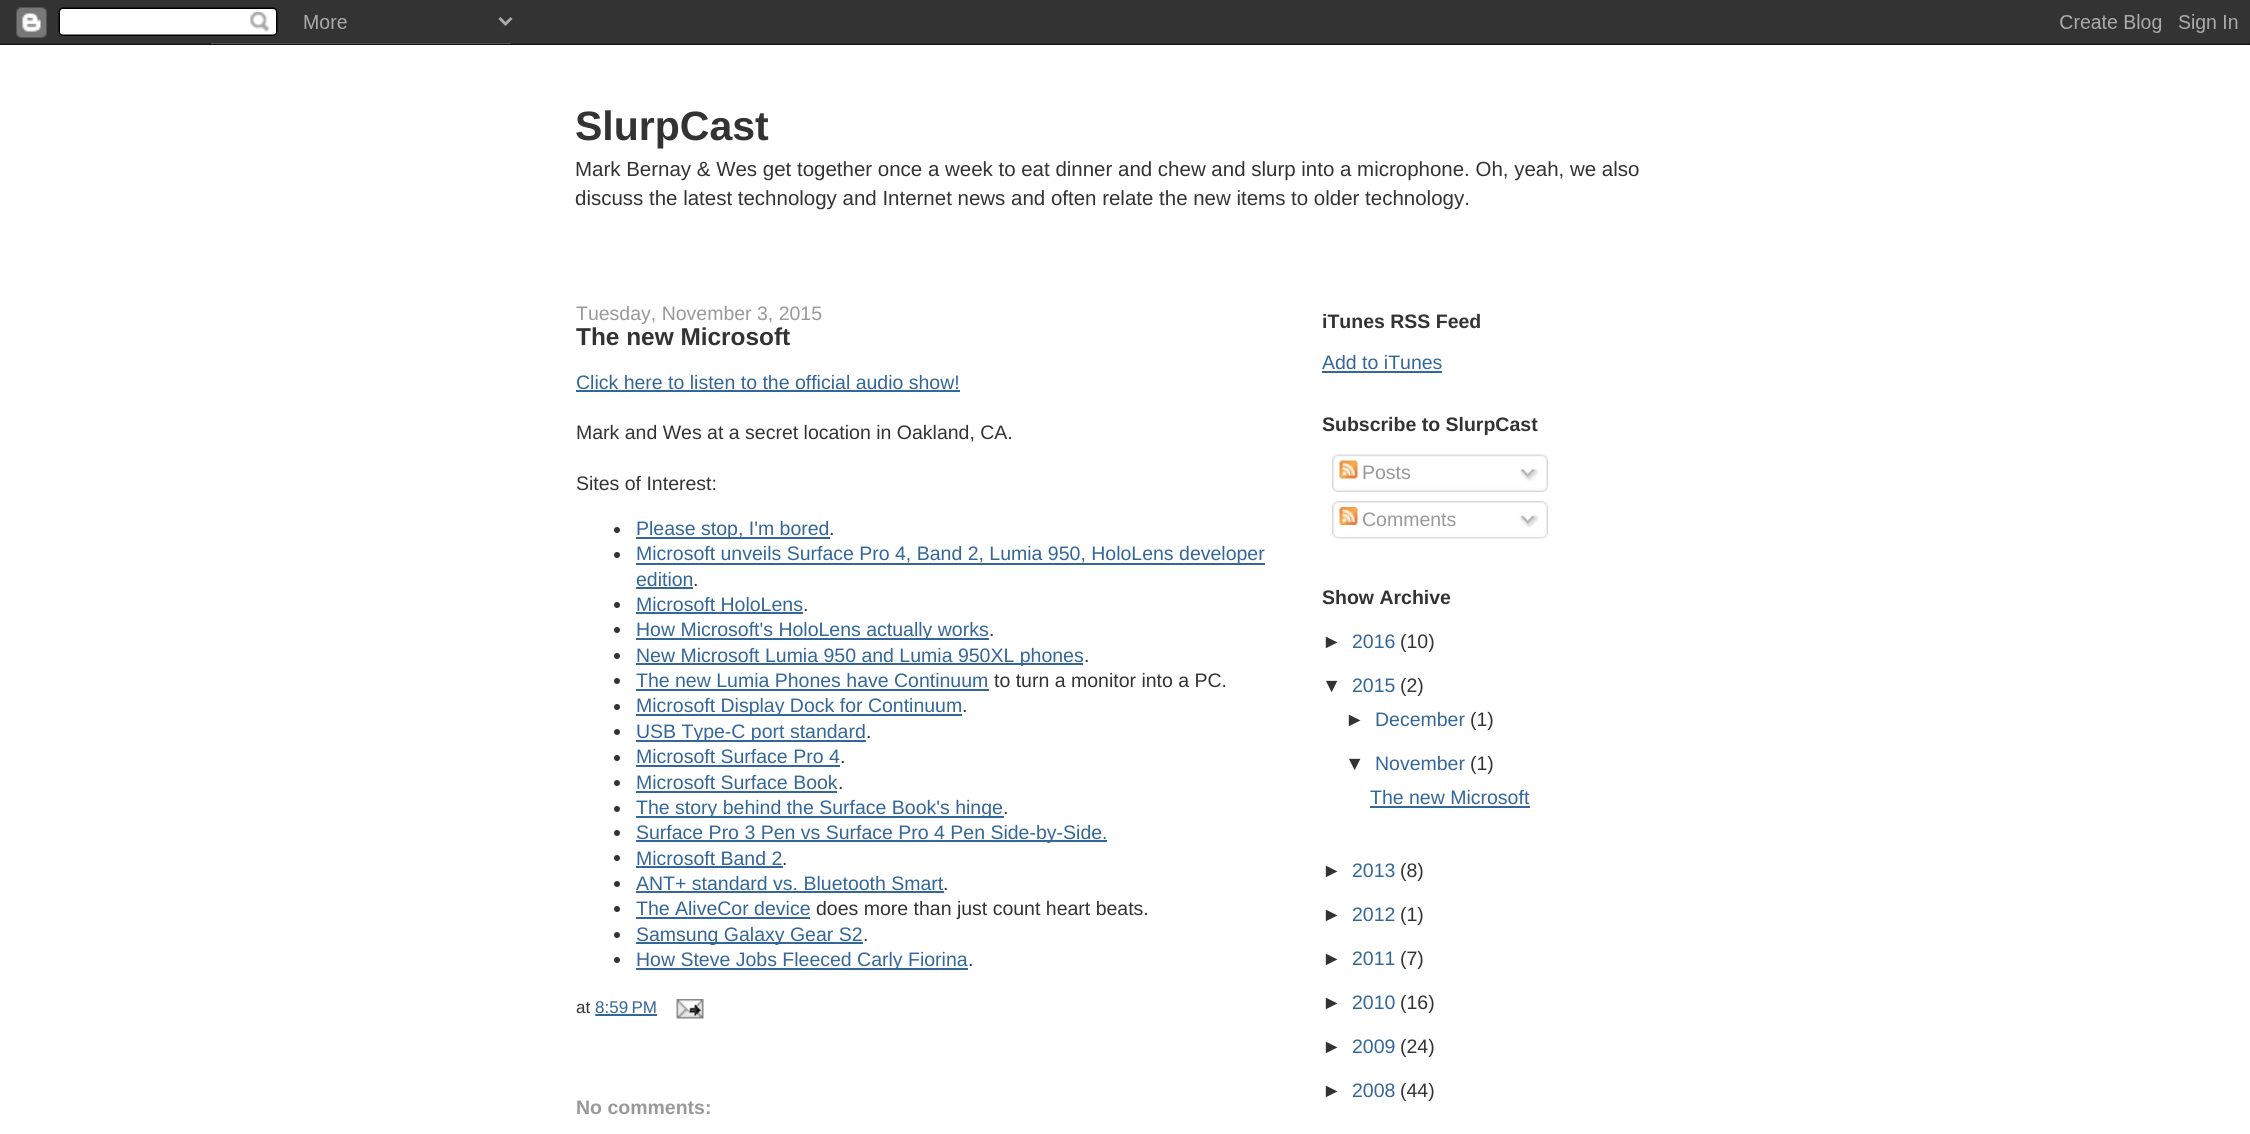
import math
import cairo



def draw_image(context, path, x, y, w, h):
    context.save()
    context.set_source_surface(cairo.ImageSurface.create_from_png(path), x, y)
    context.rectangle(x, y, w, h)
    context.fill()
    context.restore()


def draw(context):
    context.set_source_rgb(1, 1, 1)
    context.paint()
    draw_image(context, "images/1.png", 0, 0, 2250, 45)
    context.set_source_rgb(51 / 255, 102 / 255, 153 / 255)
    context.rectangle(576, 390, 384, 2)
    context.fill()
    context.set_source_rgb(51 / 255, 51 / 255, 51 / 255)
    context.arc(617, 530, 3, 0, 2 * math.pi)
    context.fill()
    context.set_source_rgb(51 / 255, 102 / 255, 153 / 255)
    context.rectangle(636, 537, 194, 2)
    context.fill()
    context.set_source_rgb(51 / 255, 51 / 255, 51 / 255)
    context.arc(617, 555, 3, 0, 2 * math.pi)
    context.fill()
    context.set_source_rgb(51 / 255, 102 / 255, 153 / 255)
    context.rectangle(636, 563, 629, 2)
    context.fill()
    context.rectangle(636, 587, 57, 2)
    context.fill()
    context.set_source_rgb(51 / 255, 51 / 255, 51 / 255)
    context.arc(617, 605, 3, 0, 2 * math.pi)
    context.fill()
    context.set_source_rgb(51 / 255, 102 / 255, 153 / 255)
    context.rectangle(636, 612, 167, 2)
    context.fill()
    context.set_source_rgb(51 / 255, 51 / 255, 51 / 255)
    context.arc(617, 630, 3, 0, 2 * math.pi)
    context.fill()
    context.set_source_rgb(51 / 255, 102 / 255, 153 / 255)
    context.rectangle(636, 638, 353, 2)
    context.fill()
    context.set_source_rgb(51 / 255, 51 / 255, 51 / 255)
    context.arc(617, 656, 3, 0, 2 * math.pi)
    context.fill()
    context.set_source_rgb(51 / 255, 102 / 255, 153 / 255)
    context.rectangle(636, 663, 447, 2)
    context.fill()
    context.set_source_rgb(51 / 255, 51 / 255, 51 / 255)
    context.arc(617, 681, 3, 0, 2 * math.pi)
    context.fill()
    context.set_source_rgb(51 / 255, 102 / 255, 153 / 255)
    context.rectangle(636, 689, 353, 2)
    context.fill()
    context.set_source_rgb(51 / 255, 51 / 255, 51 / 255)
    context.arc(617, 707, 3, 0, 2 * math.pi)
    context.fill()
    context.set_source_rgb(51 / 255, 102 / 255, 153 / 255)
    context.rectangle(636, 714, 326, 2)
    context.fill()
    context.set_source_rgb(51 / 255, 51 / 255, 51 / 255)
    context.arc(617, 732, 3, 0, 2 * math.pi)
    context.fill()
    context.set_source_rgb(51 / 255, 102 / 255, 153 / 255)
    context.rectangle(636, 740, 230, 2)
    context.fill()
    context.set_source_rgb(51 / 255, 51 / 255, 51 / 255)
    context.arc(617, 758, 3, 0, 2 * math.pi)
    context.fill()
    context.set_source_rgb(51 / 255, 102 / 255, 153 / 255)
    context.rectangle(636, 765, 204, 2)
    context.fill()
    context.set_source_rgb(51 / 255, 51 / 255, 51 / 255)
    context.arc(617, 783, 3, 0, 2 * math.pi)
    context.fill()
    context.set_source_rgb(51 / 255, 102 / 255, 153 / 255)
    context.rectangle(636, 791, 201, 2)
    context.fill()
    context.set_source_rgb(51 / 255, 51 / 255, 51 / 255)
    context.arc(617, 809, 3, 0, 2 * math.pi)
    context.fill()
    context.set_source_rgb(51 / 255, 102 / 255, 153 / 255)
    context.rectangle(636, 816, 368, 2)
    context.fill()
    context.set_source_rgb(51 / 255, 51 / 255, 51 / 255)
    context.arc(617, 833, 3, 0, 2 * math.pi)
    context.fill()
    context.set_source_rgb(51 / 255, 102 / 255, 153 / 255)
    context.rectangle(636, 840, 471, 2)
    context.fill()
    context.set_source_rgb(51 / 255, 51 / 255, 51 / 255)
    context.arc(617, 858, 3, 0, 2 * math.pi)
    context.fill()
    context.set_source_rgb(51 / 255, 102 / 255, 153 / 255)
    context.rectangle(636, 866, 147, 2)
    context.fill()
    context.set_source_rgb(51 / 255, 51 / 255, 51 / 255)
    context.arc(617, 884, 3, 0, 2 * math.pi)
    context.fill()
    context.set_source_rgb(51 / 255, 102 / 255, 153 / 255)
    context.rectangle(636, 891, 308, 2)
    context.fill()
    context.set_source_rgb(51 / 255, 51 / 255, 51 / 255)
    context.arc(617, 909, 3, 0, 2 * math.pi)
    context.fill()
    context.set_source_rgb(51 / 255, 102 / 255, 153 / 255)
    context.rectangle(636, 917, 174, 2)
    context.fill()
    context.set_source_rgb(51 / 255, 51 / 255, 51 / 255)
    context.arc(617, 935, 3, 0, 2 * math.pi)
    context.fill()
    context.set_source_rgb(51 / 255, 102 / 255, 153 / 255)
    context.rectangle(636, 942, 227, 2)
    context.fill()
    context.set_source_rgb(51 / 255, 51 / 255, 51 / 255)
    context.arc(617, 960, 3, 0, 2 * math.pi)
    context.fill()
    context.set_source_rgb(51 / 255, 102 / 255, 153 / 255)
    context.rectangle(636, 968, 332, 2)
    context.fill()
    context.new_path()
    context.move_to(595, 1015)
    context.line_to(656.5, 1015)
    context.set_line_width(1.5)
    context.set_dash([1.5, 1.5])
    context.stroke()
    context.rectangle(596, 1014, 61, 2)
    context.fill()
    draw_image(context, "images/2.png", 676, 999, 28, 20)
    context.rectangle(1322, 371, 120, 2)
    context.fill()
    draw_image(context, "images/3.png", 1332, 454, 216, 34)
    draw_image(context, "images/4.png", 1339, 460, 19, 19)
    draw_image(context, "images/5.png", 1519, 468, 20, 14)
    draw_image(context, "images/6.png", 1332, 487, 216, 5)
    draw_image(context, "images/7.png", 1332, 501, 216, 33)
    draw_image(context, "images/8.png", 1339, 507, 19, 18)
    draw_image(context, "images/9.png", 1519, 514, 20, 14)
    draw_image(context, "images/10.png", 1332, 534, 216, 5)
    context.rectangle(1370, 806, 160, 2)
    context.fill()
    context.select_font_face("Liberation Sans", cairo.FontSlant.NORMAL, cairo.FontWeight.BOLD)
    context.set_font_size(41)
    context.set_source_rgb(51 / 255, 51 / 255, 51 / 255)
    context.move_to(575, 140)
    context.show_text("SlurpCast")
    context.select_font_face("Liberation Sans")
    context.set_font_size(20.48)
    context.move_to(575, 176)
    context.show_text("Mark Bernay & Wes get together once a week to eat dinner and chew and slurp into a microphone. Oh, yeah, we also")
    context.move_to(575, 205)
    context.show_text("discuss the latest technology and Internet news and often relate the new items to older technology.")
    context.set_font_size(19.5)
    context.set_source_rgb(153 / 255, 153 / 255, 153 / 255)
    context.move_to(576, 320)
    context.show_text("Tuesday, November 3, 2015")
    context.select_font_face("Liberation Sans", cairo.FontSlant.NORMAL, cairo.FontWeight.BOLD)
    context.set_font_size(24.4)
    context.set_source_rgb(51 / 255, 51 / 255, 51 / 255)
    context.move_to(576, 345)
    context.show_text("The new Microsoft")
    context.select_font_face("Liberation Sans")
    context.set_font_size(19.5)
    context.set_source_rgb(51 / 255, 102 / 255, 153 / 255)
    context.move_to(576, 389)
    context.show_text("Click here to listen to the official audio show!")
    context.set_source_rgb(51 / 255, 51 / 255, 51 / 255)
    context.move_to(576, 439)
    context.show_text("Mark and Wes at a secret location in Oakland, CA.")
    context.move_to(576, 490)
    context.show_text("Sites of Interest:")
    context.set_source_rgb(51 / 255, 102 / 255, 153 / 255)
    context.move_to(636, 535)
    context.show_text("Please stop, I'm bored")
    context.set_source_rgb(51 / 255, 51 / 255, 51 / 255)
    context.move_to(829, 535)
    context.show_text(".")
    context.set_source_rgb(51 / 255, 102 / 255, 153 / 255)
    context.move_to(636, 560)
    context.show_text("Microsoft unveils Surface Pro 4, Band 2, Lumia 950, HoloLens developer")
    context.move_to(636, 586)
    context.show_text("edition")
    context.set_source_rgb(51 / 255, 51 / 255, 51 / 255)
    context.move_to(693, 586)
    context.show_text(".")
    context.set_source_rgb(51 / 255, 102 / 255, 153 / 255)
    context.move_to(636, 611)
    context.show_text("Microsoft HoloLens")
    context.set_source_rgb(51 / 255, 51 / 255, 51 / 255)
    context.move_to(803, 611)
    context.show_text(".")
    context.set_source_rgb(51 / 255, 102 / 255, 153 / 255)
    context.move_to(636, 636)
    context.show_text("How Microsoft's HoloLens actually works")
    context.set_source_rgb(51 / 255, 51 / 255, 51 / 255)
    context.move_to(989, 636)
    context.show_text(".")
    context.set_source_rgb(51 / 255, 102 / 255, 153 / 255)
    context.move_to(636, 662)
    context.show_text("New Microsoft Lumia 950 and Lumia 950XL phones")
    context.set_source_rgb(51 / 255, 51 / 255, 51 / 255)
    context.move_to(1084, 662)
    context.show_text(".")
    context.set_source_rgb(51 / 255, 102 / 255, 153 / 255)
    context.move_to(636, 687)
    context.show_text("The new Lumia Phones have Continuum")
    context.set_source_rgb(51 / 255, 51 / 255, 51 / 255)
    context.move_to(994, 687)
    context.show_text("to turn a monitor into a PC.")
    context.set_source_rgb(51 / 255, 102 / 255, 153 / 255)
    context.move_to(636, 712)
    context.show_text("Microsoft Display Dock for Continuum")
    context.set_source_rgb(51 / 255, 51 / 255, 51 / 255)
    context.move_to(962, 712)
    context.show_text(".")
    context.set_source_rgb(51 / 255, 102 / 255, 153 / 255)
    context.move_to(636, 738)
    context.show_text("USB Type-C port standard")
    context.set_source_rgb(51 / 255, 51 / 255, 51 / 255)
    context.move_to(866, 738)
    context.show_text(".")
    context.set_source_rgb(51 / 255, 102 / 255, 153 / 255)
    context.move_to(636, 763)
    context.show_text("Microsoft Surface Pro 4")
    context.set_source_rgb(51 / 255, 51 / 255, 51 / 255)
    context.move_to(840, 763)
    context.show_text(".")
    context.set_source_rgb(51 / 255, 102 / 255, 153 / 255)
    context.move_to(636, 789)
    context.show_text("Microsoft Surface Book")
    context.set_source_rgb(51 / 255, 51 / 255, 51 / 255)
    context.move_to(838, 789)
    context.show_text(".")
    context.set_source_rgb(51 / 255, 102 / 255, 153 / 255)
    context.move_to(636, 814)
    context.show_text("The story behind the Surface Book's hinge")
    context.set_source_rgb(51 / 255, 51 / 255, 51 / 255)
    context.move_to(1003, 814)
    context.show_text(".")
    context.set_source_rgb(51 / 255, 102 / 255, 153 / 255)
    context.move_to(636, 839)
    context.show_text("Surface Pro 3 Pen vs Surface Pro 4 Pen Side-by-Side.")
    context.move_to(636, 865)
    context.show_text("Microsoft Band 2")
    context.set_source_rgb(51 / 255, 51 / 255, 51 / 255)
    context.move_to(782, 865)
    context.show_text(".")
    context.set_source_rgb(51 / 255, 102 / 255, 153 / 255)
    context.move_to(636, 890)
    context.show_text("ANT+ standard vs. Bluetooth Smart")
    context.set_source_rgb(51 / 255, 51 / 255, 51 / 255)
    context.move_to(943, 890)
    context.show_text(".")
    context.set_source_rgb(51 / 255, 102 / 255, 153 / 255)
    context.move_to(636, 915)
    context.show_text("The AliveCor device")
    context.set_source_rgb(51 / 255, 51 / 255, 51 / 255)
    context.move_to(816, 915)
    context.show_text("does more than just count heart beats.")
    context.set_source_rgb(51 / 255, 102 / 255, 153 / 255)
    context.move_to(636, 941)
    context.show_text("Samsung Galaxy Gear S2")
    context.set_source_rgb(51 / 255, 51 / 255, 51 / 255)
    context.move_to(863, 941)
    context.show_text(".")
    context.set_source_rgb(51 / 255, 102 / 255, 153 / 255)
    context.move_to(636, 966)
    context.show_text("How Steve Jobs Fleeced Carly Fiorina")
    context.set_source_rgb(51 / 255, 51 / 255, 51 / 255)
    context.move_to(968, 966)
    context.show_text(".")
    context.set_font_size(17)
    context.move_to(576, 1013)
    context.show_text("at")
    context.set_source_rgb(51 / 255, 102 / 255, 153 / 255)
    context.move_to(595, 1013)
    context.show_text("8:59 PM")
    context.select_font_face("Liberation Sans", cairo.FontSlant.NORMAL, cairo.FontWeight.BOLD)
    context.set_font_size(19.5)
    context.set_source_rgb(153 / 255, 153 / 255, 153 / 255)
    context.move_to(576, 1114)
    context.show_text("No comments:")
    context.set_source_rgb(51 / 255, 51 / 255, 51 / 255)
    context.move_to(1322, 328)
    context.show_text("iTunes RSS Feed")
    context.select_font_face("Liberation Sans")
    context.set_source_rgb(51 / 255, 102 / 255, 153 / 255)
    context.move_to(1322, 369)
    context.show_text("Add to iTunes")
    context.select_font_face("Liberation Sans", cairo.FontSlant.NORMAL, cairo.FontWeight.BOLD)
    context.set_source_rgb(51 / 255, 51 / 255, 51 / 255)
    context.move_to(1322, 431)
    context.show_text("Subscribe to SlurpCast")
    context.select_font_face("Liberation Sans")
    context.set_source_rgb(153 / 255, 153 / 255, 153 / 255)
    context.move_to(1362, 479)
    context.show_text("Posts")
    context.move_to(1362, 526)
    context.show_text("Comments")
    context.select_font_face("Liberation Sans", cairo.FontSlant.NORMAL, cairo.FontWeight.BOLD)
    context.set_source_rgb(51 / 255, 51 / 255, 51 / 255)
    context.move_to(1322, 604)
    context.show_text("Show Archive")
    context.select_font_face("Liberation Sans")
    context.move_to(1322, 648)
    context.show_text("►")
    context.set_source_rgb(51 / 255, 102 / 255, 153 / 255)
    context.move_to(1352, 648)
    context.show_text("2016")
    context.set_source_rgb(51 / 255, 51 / 255, 51 / 255)
    context.move_to(1400, 648)
    context.show_text("(10)")
    context.move_to(1322, 692)
    context.show_text("▼")
    context.set_source_rgb(51 / 255, 102 / 255, 153 / 255)
    context.move_to(1352, 692)
    context.show_text("2015")
    context.set_source_rgb(51 / 255, 51 / 255, 51 / 255)
    context.move_to(1400, 692)
    context.show_text("(2)")
    context.move_to(1345, 726)
    context.show_text("►")
    context.set_source_rgb(51 / 255, 102 / 255, 153 / 255)
    context.move_to(1375, 726)
    context.show_text("December")
    context.set_source_rgb(51 / 255, 51 / 255, 51 / 255)
    context.move_to(1470, 726)
    context.show_text("(1)")
    context.move_to(1345, 770)
    context.show_text("▼")
    context.set_source_rgb(51 / 255, 102 / 255, 153 / 255)
    context.move_to(1375, 770)
    context.show_text("November")
    context.set_source_rgb(51 / 255, 51 / 255, 51 / 255)
    context.move_to(1470, 770)
    context.show_text("(1)")
    context.set_source_rgb(51 / 255, 102 / 255, 153 / 255)
    context.move_to(1370, 804)
    context.show_text("The new Microsoft")
    context.set_source_rgb(51 / 255, 51 / 255, 51 / 255)
    context.move_to(1322, 877)
    context.show_text("►")
    context.set_source_rgb(51 / 255, 102 / 255, 153 / 255)
    context.move_to(1352, 877)
    context.show_text("2013")
    context.set_source_rgb(51 / 255, 51 / 255, 51 / 255)
    context.move_to(1400, 877)
    context.show_text("(8)")
    context.move_to(1322, 921)
    context.show_text("►")
    context.set_source_rgb(51 / 255, 102 / 255, 153 / 255)
    context.move_to(1352, 921)
    context.show_text("2012")
    context.set_source_rgb(51 / 255, 51 / 255, 51 / 255)
    context.move_to(1400, 921)
    context.show_text("(1)")
    context.move_to(1322, 965)
    context.show_text("►")
    context.set_source_rgb(51 / 255, 102 / 255, 153 / 255)
    context.move_to(1352, 965)
    context.show_text("2011")
    context.set_source_rgb(51 / 255, 51 / 255, 51 / 255)
    context.move_to(1400, 965)
    context.show_text("(7)")
    context.move_to(1322, 1009)
    context.show_text("►")
    context.set_source_rgb(51 / 255, 102 / 255, 153 / 255)
    context.move_to(1352, 1009)
    context.show_text("2010")
    context.set_source_rgb(51 / 255, 51 / 255, 51 / 255)
    context.move_to(1400, 1009)
    context.show_text("(16)")
    context.move_to(1322, 1053)
    context.show_text("►")
    context.set_source_rgb(51 / 255, 102 / 255, 153 / 255)
    context.move_to(1352, 1053)
    context.show_text("2009")
    context.set_source_rgb(51 / 255, 51 / 255, 51 / 255)
    context.move_to(1400, 1053)
    context.show_text("(24)")
    context.move_to(1322, 1097)
    context.show_text("►")
    context.set_source_rgb(51 / 255, 102 / 255, 153 / 255)
    context.move_to(1352, 1097)
    context.show_text("2008")
    context.set_source_rgb(51 / 255, 51 / 255, 51 / 255)
    context.move_to(1400, 1097)
    context.show_text("(44)")


surface = cairo.ImageSurface(cairo.Format.RGB24, 2250, 1134)
context = cairo.Context(surface)
options = cairo.FontOptions()
options.set_hint_metrics(cairo.HintMetrics.OFF)
options.set_hint_style(cairo.HintStyle.NONE)
context.set_font_options(options)
context.set_miter_limit(4)
draw(context)
surface.write_to_png("out.png")
